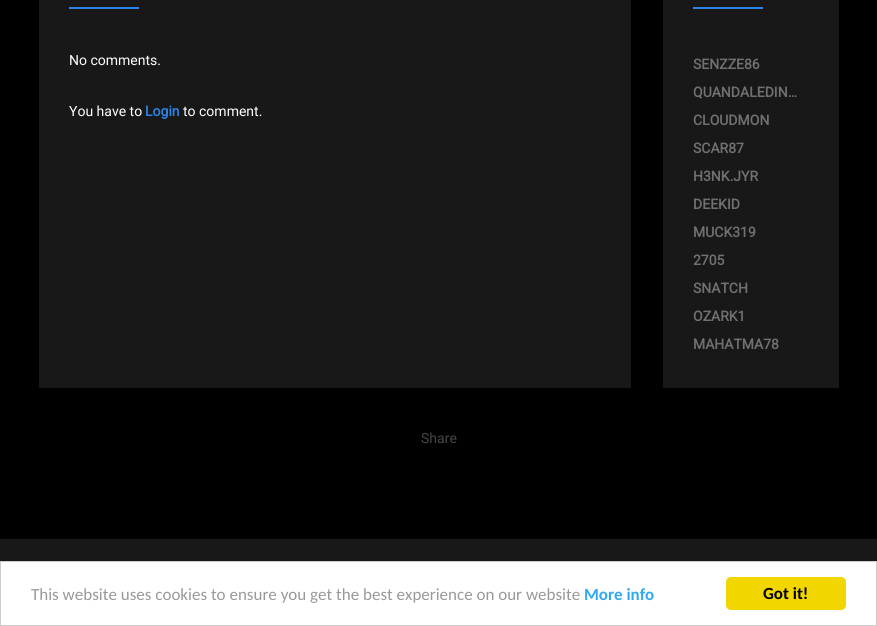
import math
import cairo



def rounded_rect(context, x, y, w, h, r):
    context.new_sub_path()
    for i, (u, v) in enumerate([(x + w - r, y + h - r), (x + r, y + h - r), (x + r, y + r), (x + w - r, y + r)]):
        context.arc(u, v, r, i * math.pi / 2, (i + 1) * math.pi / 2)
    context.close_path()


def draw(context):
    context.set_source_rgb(0, 0, 0)
    context.paint()
    context.set_source_rgb(24 / 255, 24 / 255, 24 / 255)
    context.rectangle(39, 0, 592, 388)
    context.fill()
    context.set_source_rgb(42 / 255, 133 / 255, 232 / 255)
    context.rectangle(69, 7, 70, 2)
    context.fill()
    context.set_source_rgb(24 / 255, 24 / 255, 24 / 255)
    context.rectangle(663, 0, 176, 388)
    context.fill()
    context.set_source_rgb(42 / 255, 133 / 255, 232 / 255)
    context.rectangle(693, 7, 70, 2)
    context.fill()
    context.set_source_rgb(24 / 255, 24 / 255, 24 / 255)
    context.rectangle(0, 539, 877, 22)
    context.fill()
    context.set_source_rgb(1, 1, 1)
    context.rectangle(0.5, 561.5, 876, 64)
    context.fill_preserve()
    context.set_source_rgb(204 / 255, 204 / 255, 204 / 255)
    context.set_line_width(1)
    context.stroke()
    context.set_source_rgb(241 / 255, 214 / 255, 0)
    rounded_rect(context, 726, 577, 120, 33, 5)
    context.fill()
    context.select_font_face("Roboto")
    context.set_font_size(14)
    context.set_source_rgb(1, 1, 1)
    context.move_to(69, 65)
    context.show_text("No comments.")
    context.move_to(69, 116)
    context.show_text("You have to")
    context.select_font_face("Roboto", cairo.FontSlant.NORMAL, cairo.FontWeight.BOLD)
    context.set_source_rgb(42 / 255, 133 / 255, 232 / 255)
    context.move_to(145, 116)
    context.show_text("Login")
    context.select_font_face("Roboto")
    context.set_source_rgb(1, 1, 1)
    context.move_to(183, 116)
    context.show_text("to comment.")
    context.select_font_face("Roboto", cairo.FontSlant.NORMAL, cairo.FontWeight.BOLD)
    context.set_source_rgb(112 / 255, 112 / 255, 112 / 255)
    context.move_to(693, 69)
    context.show_text("SENZZE86")
    context.move_to(693, 97)
    context.show_text("QUANDALEDIN…")
    context.move_to(693, 125)
    context.show_text("CLOUDMON")
    context.move_to(693, 153)
    context.show_text("SCAR87")
    context.move_to(693, 181)
    context.show_text("H3NK.JYR")
    context.move_to(693, 209)
    context.show_text("DEEKID")
    context.move_to(693, 237)
    context.show_text("MUCK319")
    context.move_to(693, 265)
    context.show_text("2705")
    context.move_to(693, 293)
    context.show_text("SNATCH")
    context.move_to(693, 321)
    context.show_text("OZARK1")
    context.move_to(693, 349)
    context.show_text("MAHATMA78")
    context.select_font_face("Roboto")
    context.set_source_rgb(70 / 255, 70 / 255, 70 / 255)
    context.move_to(421, 443)
    context.show_text("Share")
    context.select_font_face("Carlito")
    context.set_font_size(17)
    context.set_source_rgb(153 / 255, 153 / 255, 153 / 255)
    context.move_to(31, 600)
    context.show_text("This website uses cookies to ensure you get the best experience on our website")
    context.select_font_face("Carlito", cairo.FontSlant.NORMAL, cairo.FontWeight.BOLD)
    context.set_source_rgb(49 / 255, 168 / 255, 240 / 255)
    context.move_to(584, 600)
    context.show_text("More info")
    context.set_source_rgb(0, 0, 0)
    context.move_to(763, 599)
    context.show_text("Got it!")


surface = cairo.ImageSurface(cairo.Format.RGB24, 877, 626)
context = cairo.Context(surface)
options = cairo.FontOptions()
options.set_hint_metrics(cairo.HintMetrics.OFF)
options.set_hint_style(cairo.HintStyle.NONE)
context.set_font_options(options)
context.set_miter_limit(4)
draw(context)
surface.write_to_png("out.png")
